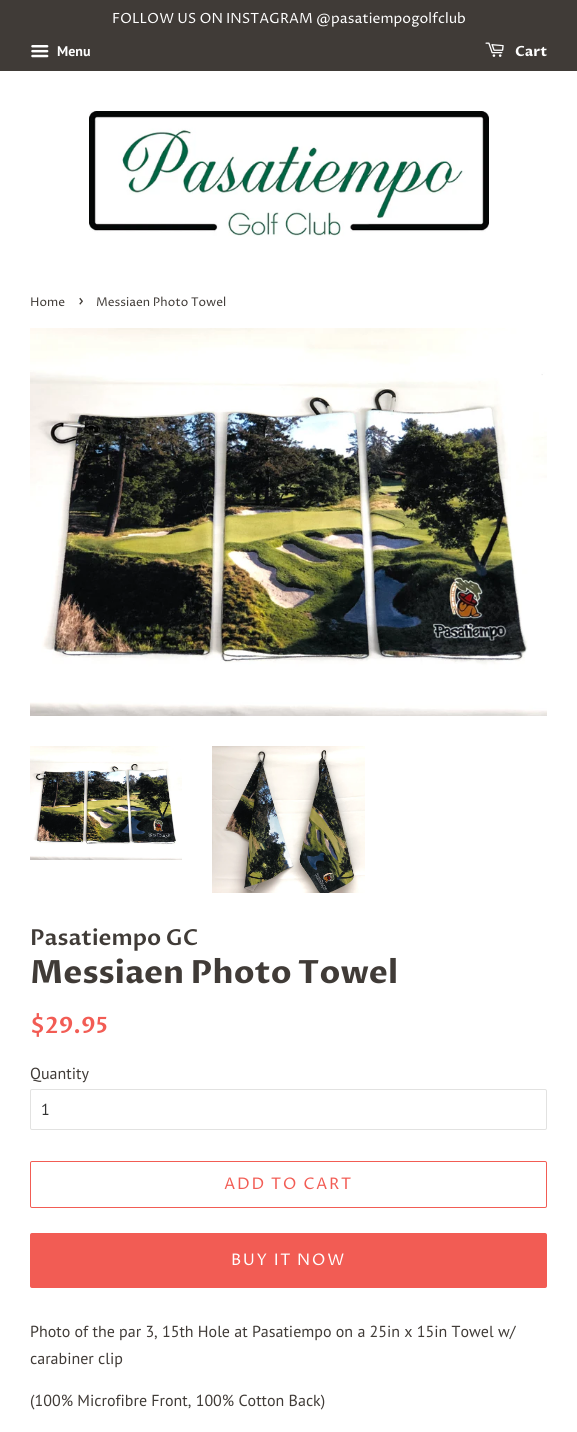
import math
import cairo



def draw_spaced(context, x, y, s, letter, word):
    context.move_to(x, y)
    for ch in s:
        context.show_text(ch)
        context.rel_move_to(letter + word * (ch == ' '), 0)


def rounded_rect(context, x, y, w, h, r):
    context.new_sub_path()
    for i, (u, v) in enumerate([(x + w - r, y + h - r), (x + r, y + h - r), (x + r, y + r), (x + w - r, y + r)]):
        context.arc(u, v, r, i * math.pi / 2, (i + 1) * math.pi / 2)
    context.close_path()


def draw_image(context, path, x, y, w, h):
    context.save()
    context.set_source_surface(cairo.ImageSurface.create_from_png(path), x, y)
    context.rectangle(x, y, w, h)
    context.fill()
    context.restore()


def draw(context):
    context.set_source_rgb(1, 1, 1)
    context.paint()
    context.set_source_rgb(64 / 255, 59 / 255, 55 / 255)
    context.rectangle(0, 0, 577, 71)
    context.fill()
    draw_image(context, "images/1.png", 31, 45, 18, 13)
    draw_image(context, "images/2.png", 485, 42, 19, 15)
    draw_image(context, "images/3.png", 89, 111, 400, 126)
    draw_image(context, "images/4.png", 30, 328, 517, 388)
    draw_image(context, "images/5.png", 30, 746, 152, 114)
    draw_image(context, "images/6.png", 212, 746, 153, 147)
    rounded_rect(context, 30.5, 1089.5, 516, 40, 1.5)
    context.set_source_rgb(226 / 255, 226 / 255, 225 / 255)
    context.set_line_width(1)
    context.stroke()
    rounded_rect(context, 30.5, 1161.5, 516, 46, 1.5)
    context.set_source_rgb(242 / 255, 92 / 255, 84 / 255)
    context.stroke()
    rounded_rect(context, 30, 1233, 517, 55, 2)
    context.fill()
    context.select_font_face("Proza Libre")
    context.set_font_size(14)
    context.set_source_rgb(1, 1, 1)
    context.move_to(112, 23)
    context.show_text("FOLLOW US ON INSTAGRAM @pasatiempogolfclub")
    context.select_font_face("PT Sans", cairo.FontSlant.NORMAL, cairo.FontWeight.BOLD)
    context.move_to(57, 56)
    context.show_text("Menu")
    context.select_font_face("Proza Libre", cairo.FontSlant.NORMAL, cairo.FontWeight.BOLD)
    context.move_to(515, 56)
    context.show_text("Cart")
    context.select_font_face("Proza Libre")
    context.set_font_size(12)
    context.set_source_rgb(64 / 255, 59 / 255, 55 / 255)
    context.move_to(30, 306)
    context.show_text("Home")
    context.set_font_size(17)
    context.move_to(78, 306)
    context.show_text("›")
    context.set_font_size(12)
    context.move_to(96, 306)
    context.show_text("Messiaen Photo Towel")
    context.select_font_face("Proza Libre SemiBold")
    context.set_font_size(22)
    context.move_to(30, 945)
    context.show_text("Pasatiempo GC")
    context.select_font_face("Proza Libre", cairo.FontSlant.NORMAL, cairo.FontWeight.BOLD)
    context.set_font_size(32)
    context.move_to(30, 983)
    context.show_text("Messiaen Photo Towel")
    context.select_font_face("Proza Libre SemiBold")
    context.set_font_size(22.5)
    context.set_source_rgb(242 / 255, 92 / 255, 84 / 255)
    context.move_to(30, 1033)
    context.show_text("$29.95")
    context.select_font_face("PT Sans")
    context.set_font_size(16)
    context.set_source_rgb(64 / 255, 59 / 255, 55 / 255)
    context.move_to(30, 1079)
    context.show_text("Quantity")
    context.set_source_rgb(51 / 255, 51 / 255, 51 / 255)
    context.move_to(41, 1115)
    context.show_text("1")
    context.select_font_face("Proza Libre")
    context.set_source_rgb(242 / 255, 92 / 255, 84 / 255)
    draw_spaced(context, 224, 1189, "ADD TO CART", 1.6, 0)
    context.set_source_rgb(1, 1, 1)
    draw_spaced(context, 231, 1265, "BUY IT NOW", 1.6, 0)
    context.select_font_face("PT Sans")
    context.set_source_rgb(64 / 255, 59 / 255, 55 / 255)
    context.move_to(30, 1337)
    context.show_text("Photo of the par 3, 15th Hole at Pasatiempo on a 25in x 15in Towel w/")
    context.move_to(30, 1364)
    context.show_text("carabiner clip")
    context.move_to(30, 1406)
    context.show_text("(100% Microfibre Front, 100% Cotton Back)")


surface = cairo.ImageSurface(cairo.Format.RGB24, 577, 1432)
context = cairo.Context(surface)
options = cairo.FontOptions()
options.set_hint_metrics(cairo.HintMetrics.OFF)
options.set_hint_style(cairo.HintStyle.NONE)
context.set_font_options(options)
context.set_miter_limit(4)
draw(context)
surface.write_to_png("out.png")
